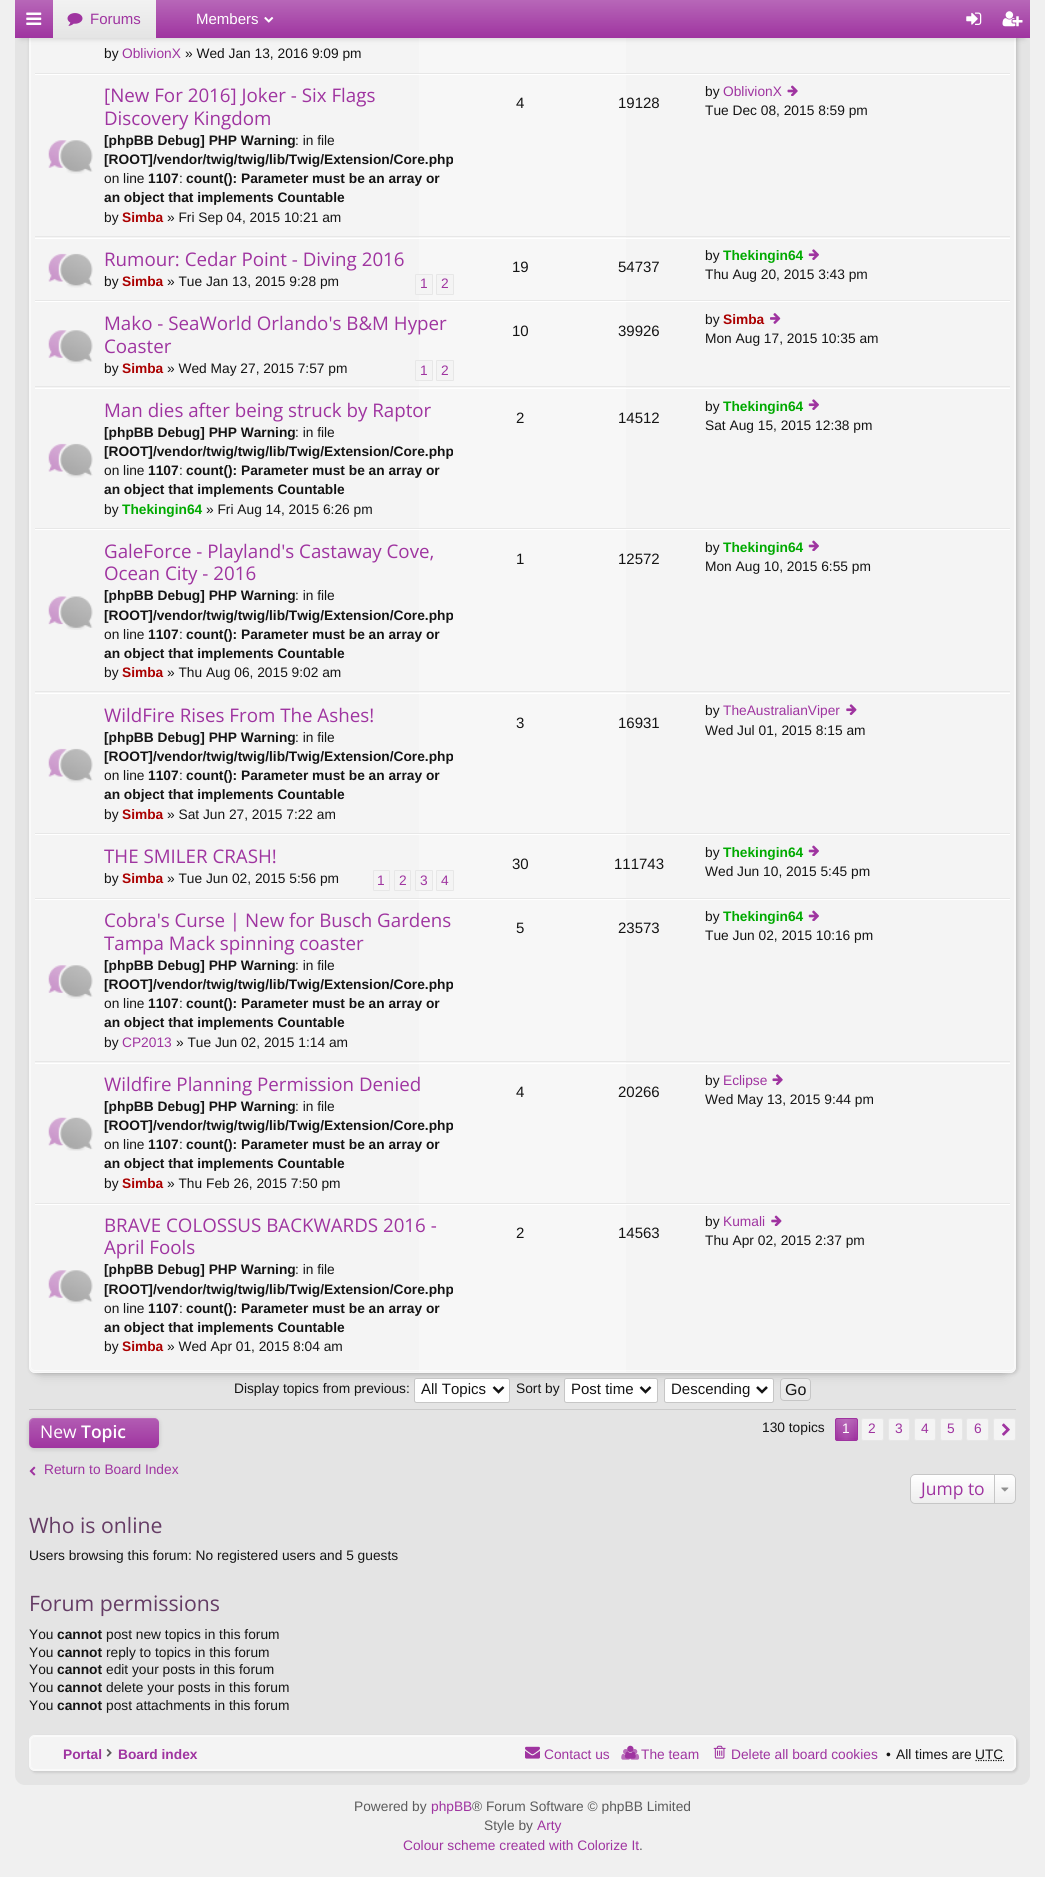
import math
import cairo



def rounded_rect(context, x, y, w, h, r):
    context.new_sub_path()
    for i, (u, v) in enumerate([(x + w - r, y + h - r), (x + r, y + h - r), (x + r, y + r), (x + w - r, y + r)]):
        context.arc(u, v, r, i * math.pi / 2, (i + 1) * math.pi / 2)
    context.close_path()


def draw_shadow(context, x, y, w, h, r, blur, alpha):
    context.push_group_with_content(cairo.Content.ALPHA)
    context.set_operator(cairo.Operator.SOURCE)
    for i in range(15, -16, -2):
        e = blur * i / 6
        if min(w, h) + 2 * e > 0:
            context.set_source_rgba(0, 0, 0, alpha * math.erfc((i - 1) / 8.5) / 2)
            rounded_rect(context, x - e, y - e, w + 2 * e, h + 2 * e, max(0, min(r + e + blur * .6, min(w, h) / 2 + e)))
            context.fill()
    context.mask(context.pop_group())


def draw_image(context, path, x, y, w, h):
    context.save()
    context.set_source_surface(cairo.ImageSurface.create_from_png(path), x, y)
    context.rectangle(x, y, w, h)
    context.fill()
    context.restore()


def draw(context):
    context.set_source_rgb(240 / 255, 240 / 255, 240 / 255)
    context.paint()
    context.set_source_rgb(228 / 255, 228 / 255, 228 / 255)
    rounded_rect(context, 15.5, -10.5, 1014, 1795, 9.5)
    context.fill_preserve()
    context.set_line_width(1)
    context.stroke()
    context.set_source_rgb(0, 0, 0)
    draw_shadow(context, 41, -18, 963, 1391, 0, 6, 0.2)
    draw_shadow(context, 30, -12, 988, 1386, 6, 2, 0.15)
    context.set_source_rgb(244 / 255, 244 / 255, 244 / 255)
    rounded_rect(context, 29, -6, 987, 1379, 6)
    context.fill()
    gradient = cairo.LinearGradient(30, -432, 1015, -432)
    gradient.add_color_stop_rgba(0, 1, 1, 1, 0)
    gradient.add_color_stop_rgba(0.5, 1, 1, 1, 0.3)
    gradient.add_color_stop_rgba(1, 1, 1, 1, 0)
    context.set_source(gradient)
    context.rectangle(419, 38, 207, 1334)
    context.fill()
    rounded_rect(context, 30.5, -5.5, 984, 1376, 4.5)
    context.set_source_rgba(1, 1, 1, 0.5)
    context.stroke()
    rounded_rect(context, 29.5, -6.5, 986, 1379, 5.5)
    context.set_source_rgb(249 / 255, 249 / 255, 249 / 255)
    context.stroke()
    context.set_source_rgb(0, 0, 0)
    draw_shadow(context, 21, 13, 1003, 25, 0, 3, 0.2)
    gradient = cairo.LinearGradient(523, 0, 523, 38)
    gradient.add_color_stop_rgba(0, 183 / 255, 103 / 255, 184 / 255, 1)
    gradient.add_color_stop_rgba(1, 159 / 255, 52 / 255, 160 / 255, 1)
    context.set_source(gradient)
    context.rectangle(15, 0, 1015, 38)
    context.fill()
    draw_image(context, "images/1.png", 26, 12, 16, 13)
    gradient = cairo.LinearGradient(104, 0, 104, 38)
    gradient.add_color_stop_rgba(0, 242 / 255, 242 / 255, 242 / 255, 1)
    gradient.add_color_stop_rgba(1, 228 / 255, 228 / 255, 228 / 255, 1)
    context.set_source(gradient)
    context.rectangle(53, 0, 103, 38)
    context.fill()
    draw_image(context, "images/2.png", 67, 13, 16, 13)
    draw_image(context, "images/3.png", 264, 17, 10, 6)
    draw_image(context, "images/4.png", 966, 12, 16, 13)
    draw_image(context, "images/5.png", 1002, 11, 21, 16)
    context.set_source_rgb(231 / 255, 231 / 255, 231 / 255)
    context.rectangle(35, 73, 975, 1)
    context.fill()
    context.set_source_rgb(1, 1, 1)
    context.rectangle(35, 74, 975, 1)
    context.fill()
    context.set_source_rgb(231 / 255, 231 / 255, 231 / 255)
    context.rectangle(35, 236, 975, 1)
    context.fill()
    draw_image(context, "images/6.png", 48, 140, 45, 34)
    draw_image(context, "images/7.png", 787, 85, 11, 11)
    context.set_source_rgb(1, 1, 1)
    context.rectangle(35, 238, 975, 1)
    context.fill()
    context.set_source_rgb(231 / 255, 231 / 255, 231 / 255)
    context.rectangle(35, 300, 975, 1)
    context.fill()
    draw_image(context, "images/8.png", 48, 253, 45, 35)
    context.set_source_rgb(244 / 255, 244 / 255, 244 / 255)
    rounded_rect(context, 415.5, 274.5, 17, 20, 0.5)
    context.fill_preserve()
    context.set_source_rgb(231 / 255, 231 / 255, 231 / 255)
    context.stroke()
    context.set_source_rgb(244 / 255, 244 / 255, 244 / 255)
    rounded_rect(context, 436.5, 274.5, 17, 20, 0.5)
    context.fill_preserve()
    context.set_source_rgb(231 / 255, 231 / 255, 231 / 255)
    context.stroke()
    draw_image(context, "images/9.png", 808, 249, 11, 11)
    context.set_source_rgb(1, 1, 1)
    context.rectangle(35, 301, 975, 1)
    context.fill()
    context.set_source_rgb(231 / 255, 231 / 255, 231 / 255)
    context.rectangle(35, 386, 975, 1)
    context.fill()
    draw_image(context, "images/6.png", 48, 330, 45, 34)
    context.set_source_rgb(244 / 255, 244 / 255, 244 / 255)
    rounded_rect(context, 415.5, 360.5, 17, 20, 0.5)
    context.fill_preserve()
    context.set_source_rgb(231 / 255, 231 / 255, 231 / 255)
    context.stroke()
    context.set_source_rgb(244 / 255, 244 / 255, 244 / 255)
    rounded_rect(context, 436.5, 360.5, 17, 20, 0.5)
    context.fill_preserve()
    context.set_source_rgb(231 / 255, 231 / 255, 231 / 255)
    context.stroke()
    draw_image(context, "images/10.png", 770, 313, 11, 11)
    context.set_source_rgb(1, 1, 1)
    context.rectangle(35, 388, 975, 1)
    context.fill()
    context.set_source_rgb(231 / 255, 231 / 255, 231 / 255)
    context.rectangle(35, 528, 975, 1)
    context.fill()
    draw_image(context, "images/8.png", 48, 443, 45, 35)
    draw_image(context, "images/9.png", 808, 399, 11, 11)
    context.set_source_rgb(1, 1, 1)
    context.rectangle(35, 529, 975, 1)
    context.fill()
    context.set_source_rgb(231 / 255, 231 / 255, 231 / 255)
    context.rectangle(35, 691, 975, 1)
    context.fill()
    draw_image(context, "images/11.png", 48, 596, 45, 34)
    draw_image(context, "images/12.png", 808, 540, 11, 11)
    context.set_source_rgb(1, 1, 1)
    context.rectangle(35, 693, 975, 1)
    context.fill()
    context.set_source_rgb(231 / 255, 231 / 255, 231 / 255)
    context.rectangle(35, 833, 975, 1)
    context.fill()
    draw_image(context, "images/8.png", 48, 748, 45, 35)
    draw_image(context, "images/13.png", 846, 704, 11, 11)
    context.set_source_rgb(1, 1, 1)
    context.rectangle(35, 834, 975, 1)
    context.fill()
    context.set_source_rgb(231 / 255, 231 / 255, 231 / 255)
    context.rectangle(35, 898, 975, 1)
    context.fill()
    rounded_rect(context, 373.5, 870.5, 16, 20, 0.5)
    context.stroke()
    rounded_rect(context, 394.5, 870.5, 16, 20, 0.5)
    context.stroke()
    context.set_source_rgb(244 / 255, 244 / 255, 244 / 255)
    rounded_rect(context, 415.5, 870.5, 17, 20, 0.5)
    context.fill_preserve()
    context.set_source_rgb(231 / 255, 231 / 255, 231 / 255)
    context.stroke()
    context.set_source_rgb(244 / 255, 244 / 255, 244 / 255)
    rounded_rect(context, 436.5, 870.5, 17, 20, 0.5)
    context.fill_preserve()
    context.set_source_rgb(231 / 255, 231 / 255, 231 / 255)
    context.stroke()
    draw_image(context, "images/12.png", 808, 845, 11, 11)
    context.set_source_rgb(1, 1, 1)
    context.rectangle(35, 899, 975, 1)
    context.fill()
    context.set_source_rgb(231 / 255, 231 / 255, 231 / 255)
    context.rectangle(35, 1061, 975, 1)
    context.fill()
    draw_image(context, "images/6.png", 48, 965, 45, 34)
    draw_image(context, "images/12.png", 808, 910, 11, 11)
    context.set_source_rgb(1, 1, 1)
    context.rectangle(35, 1063, 975, 1)
    context.fill()
    context.set_source_rgb(231 / 255, 231 / 255, 231 / 255)
    context.rectangle(35, 1203, 975, 1)
    context.fill()
    draw_image(context, "images/14.png", 48, 1117, 45, 34)
    draw_image(context, "images/15.png", 772, 1074, 11, 11)
    context.set_source_rgb(1, 1, 1)
    context.rectangle(35, 1204, 975, 1)
    context.fill()
    draw_image(context, "images/6.png", 48, 1270, 45, 34)
    draw_image(context, "images/16.png", 771, 1215, 11, 11)
    rounded_rect(context, 414.5, 1378.5, 95, 24, 2)
    context.fill_preserve()
    context.set_source_rgb(198 / 255, 198 / 255, 198 / 255)
    context.stroke()
    context.new_path()
    context.move_to(493.5, 1387)
    context.line_to(498.5, 1392)
    context.line_to(503.5, 1387)
    context.set_source_rgb(20 / 255, 20 / 255, 20 / 255)
    context.set_line_width(2.5)
    context.stroke()
    context.set_source_rgb(1, 1, 1)
    rounded_rect(context, 564.5, 1378.5, 93, 24, 2)
    context.fill_preserve()
    context.set_source_rgb(198 / 255, 198 / 255, 198 / 255)
    context.set_line_width(1)
    context.stroke()
    context.new_path()
    context.move_to(640.5, 1387)
    context.line_to(645.5, 1392)
    context.line_to(650.5, 1387)
    context.set_source_rgb(20 / 255, 20 / 255, 20 / 255)
    context.set_line_width(2.5)
    context.stroke()
    context.set_source_rgb(1, 1, 1)
    rounded_rect(context, 664.5, 1378.5, 109, 24, 2)
    context.fill_preserve()
    context.set_source_rgb(198 / 255, 198 / 255, 198 / 255)
    context.set_line_width(1)
    context.stroke()
    context.new_path()
    context.move_to(757, 1387)
    context.line_to(762, 1392)
    context.line_to(767, 1387)
    context.set_source_rgb(20 / 255, 20 / 255, 20 / 255)
    context.set_line_width(2.5)
    context.stroke()
    context.set_source_rgb(232 / 255, 232 / 255, 232 / 255)
    rounded_rect(context, 780, 1378, 31, 23, 4)
    context.fill()
    context.save()
    rounded_rect(context, 780, 1378, 31, 23, 4)
    context.clip()
    gradient = cairo.LinearGradient(796, 1379, 796, 1400)
    gradient.add_color_stop_rgba(0, 1, 1, 1, 0.2)
    gradient.add_color_stop_rgba(1, 1, 1, 1, 0)
    context.set_source(gradient)
    context.rectangle(780, 1379, 31, 19)
    context.fill()
    context.restore()
    rounded_rect(context, 780.5, 1378.5, 30, 22, 3.5)
    context.set_source_rgb(198 / 255, 198 / 255, 198 / 255)
    context.set_line_width(1)
    context.stroke()
    context.set_source_rgb(203 / 255, 203 / 255, 203 / 255)
    context.rectangle(29, 1409, 987, 1)
    context.fill()
    context.set_source_rgb(0, 0, 0)
    draw_shadow(context, 29, 1419, 130, 30, 5, 2.5, 0.15)
    context.set_source_rgb(159 / 255, 52 / 255, 160 / 255)
    rounded_rect(context, 29, 1418, 130, 30, 5)
    context.fill()
    gradient = cairo.LinearGradient(94, 1418, 94, 1448)
    gradient.add_color_stop_rgba(0, 1, 1, 1, 0.2)
    gradient.add_color_stop_rgba(1, 1, 1, 1, 0)
    context.set_source(gradient)
    rounded_rect(context, 29, 1418, 130, 30, 5)
    context.fill()
    context.set_source_rgba(1, 1, 1, 0.1)
    context.new_path()
    context.move_to(35, 1419)
    context.line_to(155, 1419)
    context.line_to(158, 1420)
    context.curve_to(157, 1419, 155, 1418, 154, 1418)
    context.line_to(34, 1418)
    context.curve_to(31, 1418, 29, 1420, 29, 1423)
    context.line_to(29, 1443)
    context.curve_to(29, 1444, 30, 1446, 31, 1447)
    context.curve_to(29, 1444, 30, 1437, 30, 1434)
    context.curve_to(30, 1430, 28, 1419, 35, 1419)
    context.close_path()
    context.fill()
    context.set_source_rgb(159 / 255, 52 / 255, 160 / 255)
    rounded_rect(context, 835, 1418, 23, 23, 2.5)
    context.fill()
    gradient = cairo.LinearGradient(836, 1429, 856, 1429)
    gradient.add_color_stop_rgba(0, 1, 1, 1, 0)
    gradient.add_color_stop_rgba(0.5, 1, 1, 1, 0.1)
    gradient.add_color_stop_rgba(1, 1, 1, 1, 0)
    context.set_source(gradient)
    context.rectangle(838, 1419, 16, 21)
    context.fill()
    gradient = cairo.LinearGradient(846, 1419, 846, 1440)
    gradient.add_color_stop_rgba(0, 1, 1, 1, 0.2)
    gradient.add_color_stop_rgba(1, 1, 1, 1, 0)
    context.set_source(gradient)
    context.rectangle(835, 1419, 23, 19)
    context.fill()
    rounded_rect(context, 835.5, 1418.5, 22, 22, 2)
    context.set_source_rgb(159 / 255, 52 / 255, 160 / 255)
    context.stroke()
    context.set_source_rgb(244 / 255, 244 / 255, 244 / 255)
    rounded_rect(context, 861.5, 1418.5, 22, 22, 2)
    context.fill_preserve()
    context.set_source_rgb(231 / 255, 231 / 255, 231 / 255)
    context.stroke()
    context.set_source_rgb(244 / 255, 244 / 255, 244 / 255)
    rounded_rect(context, 888.5, 1418.5, 21, 22, 2)
    context.fill_preserve()
    context.set_source_rgb(231 / 255, 231 / 255, 231 / 255)
    context.stroke()
    context.set_source_rgb(244 / 255, 244 / 255, 244 / 255)
    rounded_rect(context, 914.5, 1418.5, 21, 22, 2)
    context.fill_preserve()
    context.set_source_rgb(231 / 255, 231 / 255, 231 / 255)
    context.stroke()
    context.set_source_rgb(244 / 255, 244 / 255, 244 / 255)
    rounded_rect(context, 940.5, 1418.5, 22, 22, 2)
    context.fill_preserve()
    context.set_source_rgb(231 / 255, 231 / 255, 231 / 255)
    context.stroke()
    context.set_source_rgb(244 / 255, 244 / 255, 244 / 255)
    rounded_rect(context, 966.5, 1418.5, 22, 22, 2)
    context.fill_preserve()
    context.set_source_rgb(231 / 255, 231 / 255, 231 / 255)
    context.stroke()
    context.set_source_rgb(244 / 255, 244 / 255, 244 / 255)
    rounded_rect(context, 993.5, 1418.5, 22, 22, 2)
    context.fill_preserve()
    context.set_source_rgb(231 / 255, 231 / 255, 231 / 255)
    context.stroke()
    draw_image(context, "images/17.png", 1002, 1423, 8, 13)
    draw_image(context, "images/18.png", 29, 1466, 7, 10)
    context.set_source_rgb(238 / 255, 238 / 255, 238 / 255)
    rounded_rect(context, 910, 1474, 106, 30, 5)
    context.fill()
    context.save()
    rounded_rect(context, 910, 1474, 106, 30, 5)
    context.clip()
    gradient = cairo.LinearGradient(963, 1475, 963, 1503)
    gradient.add_color_stop_rgba(0, 1, 1, 1, 1)
    gradient.add_color_stop_rgba(1, 1, 1, 1, 0)
    context.set_source(gradient)
    context.rectangle(910, 1475, 106, 27)
    context.fill()
    context.restore()
    rounded_rect(context, 910.5, 1474.5, 105, 29, 4.5)
    context.set_source_rgb(198 / 255, 198 / 255, 198 / 255)
    context.stroke()
    context.rectangle(994, 1475, 1, 28)
    context.fill()
    draw_image(context, "images/19.png", 1001, 1487, 8, 5)
    context.set_source_rgb(0, 0, 0)
    draw_shadow(context, 30, 1736, 988, 37, 6, 1, 0.1)
    context.set_source_rgb(244 / 255, 244 / 255, 244 / 255)
    rounded_rect(context, 29, 1735, 987, 36, 6)
    context.fill()
    rounded_rect(context, 30.5, 1736.5, 984, 33, 4.5)
    context.set_source_rgb(250 / 255, 250 / 255, 250 / 255)
    context.stroke()
    rounded_rect(context, 29.5, 1735.5, 986, 35, 5.5)
    context.set_source_rgb(249 / 255, 249 / 255, 249 / 255)
    context.stroke()
    draw_image(context, "images/20.png", 106, 1748, 6, 9)
    draw_image(context, "images/21.png", 525, 1746, 15, 13)
    draw_image(context, "images/23.png", 621, 1749, 19, 11)
    draw_image(context, "images/22.png", 625, 1745, 11, 14)
    draw_image(context, "images/24.png", 713, 1745, 13, 14)
    context.new_path()
    context.move_to(975.5, 1760.5)
    context.line_to(1004, 1760.5)
    context.set_source_rgb(20 / 255, 20 / 255, 20 / 255)
    context.set_line_width(1.2)
    context.set_dash([1.25, 1.25])
    context.stroke()
    context.select_font_face("Liberation Sans")
    context.set_font_size(15)
    context.set_source_rgb(159 / 255, 52 / 255, 160 / 255)
    context.move_to(90, 24)
    context.show_text("Forums")
    context.set_source_rgb(1, 1, 1)
    context.move_to(196, 24)
    context.show_text("Members")
    context.set_font_size(13.75)
    context.set_source_rgb(20 / 255, 20 / 255, 20 / 255)
    context.move_to(104, 58)
    context.show_text("by")
    context.set_source_rgb(159 / 255, 52 / 255, 160 / 255)
    context.move_to(122, 58)
    context.show_text("OblivionX")
    context.set_source_rgb(20 / 255, 20 / 255, 20 / 255)
    context.move_to(185, 58)
    context.show_text("» Wed Jan 13, 2016 9:09 pm")
    context.select_font_face("Open Sans")
    context.set_font_size(18.75)
    context.set_source_rgb(159 / 255, 52 / 255, 160 / 255)
    context.move_to(104, 102)
    context.show_text("[New For 2016] Joker - Six Flags")
    context.move_to(104, 125)
    context.show_text("Discovery Kingdom")
    context.select_font_face("Liberation Sans", cairo.FontSlant.NORMAL, cairo.FontWeight.BOLD)
    context.set_font_size(13.75)
    context.set_source_rgb(20 / 255, 20 / 255, 20 / 255)
    context.move_to(104, 145)
    context.show_text("[phpBB Debug] PHP Warning")
    context.select_font_face("Liberation Sans")
    context.move_to(295, 145)
    context.show_text(": in file")
    context.select_font_face("Liberation Sans", cairo.FontSlant.NORMAL, cairo.FontWeight.BOLD)
    context.move_to(104, 164)
    context.show_text("[ROOT]/vendor/twig/twig/lib/Twig/Extension/Core.php")
    context.select_font_face("Liberation Sans")
    context.move_to(104, 183)
    context.show_text("on line")
    context.select_font_face("Liberation Sans", cairo.FontSlant.NORMAL, cairo.FontWeight.BOLD)
    context.move_to(148, 183)
    context.show_text("1107")
    context.select_font_face("Liberation Sans")
    context.move_to(179, 183)
    context.show_text(":")
    context.select_font_face("Liberation Sans", cairo.FontSlant.NORMAL, cairo.FontWeight.BOLD)
    context.move_to(186, 183)
    context.show_text("count(): Parameter must be an array or")
    context.move_to(104, 202)
    context.show_text("an object that implements Countable")
    context.select_font_face("Liberation Sans")
    context.move_to(104, 222)
    context.show_text("by")
    context.select_font_face("Liberation Sans", cairo.FontSlant.NORMAL, cairo.FontWeight.BOLD)
    context.set_source_rgb(170 / 255, 0, 0)
    context.move_to(122, 222)
    context.show_text("Simba")
    context.select_font_face("Liberation Sans")
    context.set_source_rgb(20 / 255, 20 / 255, 20 / 255)
    context.move_to(167, 222)
    context.show_text("» Fri Sep 04, 2015 10:21 am")
    context.set_font_size(15)
    context.move_to(516, 108)
    context.show_text("4")
    context.move_to(618, 108)
    context.show_text("19128")
    context.set_font_size(13.75)
    context.move_to(705, 96)
    context.show_text("by")
    context.set_source_rgb(159 / 255, 52 / 255, 160 / 255)
    context.move_to(723, 96)
    context.show_text("OblivionX")
    context.set_source_rgb(20 / 255, 20 / 255, 20 / 255)
    context.move_to(705, 115)
    context.show_text("Tue Dec 08, 2015 8:59 pm")
    context.select_font_face("Open Sans")
    context.set_font_size(18.75)
    context.set_source_rgb(159 / 255, 52 / 255, 160 / 255)
    context.move_to(104, 266)
    context.show_text("Rumour: Cedar Point - Diving 2016")
    context.select_font_face("Liberation Sans")
    context.set_font_size(13.75)
    context.set_source_rgb(20 / 255, 20 / 255, 20 / 255)
    context.move_to(104, 286)
    context.show_text("by")
    context.select_font_face("Liberation Sans", cairo.FontSlant.NORMAL, cairo.FontWeight.BOLD)
    context.set_source_rgb(170 / 255, 0, 0)
    context.move_to(122, 286)
    context.show_text("Simba")
    context.select_font_face("Liberation Sans")
    context.set_source_rgb(20 / 255, 20 / 255, 20 / 255)
    context.move_to(167, 286)
    context.show_text("» Tue Jan 13, 2015 9:28 pm")
    context.set_source_rgb(159 / 255, 52 / 255, 160 / 255)
    context.move_to(420, 288)
    context.show_text("1")
    context.move_to(441, 288)
    context.show_text("2")
    context.set_font_size(15)
    context.set_source_rgb(20 / 255, 20 / 255, 20 / 255)
    context.move_to(512, 272)
    context.show_text("19")
    context.move_to(618, 272)
    context.show_text("54737")
    context.set_font_size(13.75)
    context.move_to(705, 260)
    context.show_text("by")
    context.select_font_face("Liberation Sans", cairo.FontSlant.NORMAL, cairo.FontWeight.BOLD)
    context.set_source_rgb(0, 170 / 255, 0)
    context.move_to(723, 260)
    context.show_text("Thekingin64")
    context.select_font_face("Liberation Sans")
    context.set_source_rgb(20 / 255, 20 / 255, 20 / 255)
    context.move_to(705, 279)
    context.show_text("Thu Aug 20, 2015 3:43 pm")
    context.select_font_face("Open Sans")
    context.set_font_size(18.75)
    context.set_source_rgb(159 / 255, 52 / 255, 160 / 255)
    context.move_to(104, 330)
    context.show_text("Mako - SeaWorld Orlando's B&M Hyper")
    context.move_to(104, 353)
    context.show_text("Coaster")
    context.select_font_face("Liberation Sans")
    context.set_font_size(13.75)
    context.set_source_rgb(20 / 255, 20 / 255, 20 / 255)
    context.move_to(104, 373)
    context.show_text("by")
    context.select_font_face("Liberation Sans", cairo.FontSlant.NORMAL, cairo.FontWeight.BOLD)
    context.set_source_rgb(170 / 255, 0, 0)
    context.move_to(122, 373)
    context.show_text("Simba")
    context.select_font_face("Liberation Sans")
    context.set_source_rgb(20 / 255, 20 / 255, 20 / 255)
    context.move_to(167, 373)
    context.show_text("» Wed May 27, 2015 7:57 pm")
    context.set_source_rgb(159 / 255, 52 / 255, 160 / 255)
    context.move_to(420, 375)
    context.show_text("1")
    context.move_to(441, 375)
    context.show_text("2")
    context.set_font_size(15)
    context.set_source_rgb(20 / 255, 20 / 255, 20 / 255)
    context.move_to(512, 336)
    context.show_text("10")
    context.move_to(618, 336)
    context.show_text("39926")
    context.set_font_size(13.75)
    context.move_to(705, 324)
    context.show_text("by")
    context.select_font_face("Liberation Sans", cairo.FontSlant.NORMAL, cairo.FontWeight.BOLD)
    context.set_source_rgb(170 / 255, 0, 0)
    context.move_to(723, 324)
    context.show_text("Simba")
    context.select_font_face("Liberation Sans")
    context.set_source_rgb(20 / 255, 20 / 255, 20 / 255)
    context.move_to(705, 343)
    context.show_text("Mon Aug 17, 2015 10:35 am")
    context.select_font_face("Open Sans")
    context.set_font_size(18.75)
    context.set_source_rgb(159 / 255, 52 / 255, 160 / 255)
    context.move_to(104, 417)
    context.show_text("Man dies after being struck by Raptor")
    context.select_font_face("Liberation Sans", cairo.FontSlant.NORMAL, cairo.FontWeight.BOLD)
    context.set_font_size(13.75)
    context.set_source_rgb(20 / 255, 20 / 255, 20 / 255)
    context.move_to(104, 437)
    context.show_text("[phpBB Debug] PHP Warning")
    context.select_font_face("Liberation Sans")
    context.move_to(295, 437)
    context.show_text(": in file")
    context.select_font_face("Liberation Sans", cairo.FontSlant.NORMAL, cairo.FontWeight.BOLD)
    context.move_to(104, 456)
    context.show_text("[ROOT]/vendor/twig/twig/lib/Twig/Extension/Core.php")
    context.select_font_face("Liberation Sans")
    context.move_to(104, 475)
    context.show_text("on line")
    context.select_font_face("Liberation Sans", cairo.FontSlant.NORMAL, cairo.FontWeight.BOLD)
    context.move_to(148, 475)
    context.show_text("1107")
    context.select_font_face("Liberation Sans")
    context.move_to(179, 475)
    context.show_text(":")
    context.select_font_face("Liberation Sans", cairo.FontSlant.NORMAL, cairo.FontWeight.BOLD)
    context.move_to(186, 475)
    context.show_text("count(): Parameter must be an array or")
    context.move_to(104, 494)
    context.show_text("an object that implements Countable")
    context.select_font_face("Liberation Sans")
    context.move_to(104, 514)
    context.show_text("by")
    context.select_font_face("Liberation Sans", cairo.FontSlant.NORMAL, cairo.FontWeight.BOLD)
    context.set_source_rgb(0, 170 / 255, 0)
    context.move_to(122, 514)
    context.show_text("Thekingin64")
    context.select_font_face("Liberation Sans")
    context.set_source_rgb(20 / 255, 20 / 255, 20 / 255)
    context.move_to(206, 514)
    context.show_text("» Fri Aug 14, 2015 6:26 pm")
    context.set_font_size(15)
    context.move_to(516, 423)
    context.show_text("2")
    context.move_to(618, 423)
    context.show_text("14512")
    context.set_font_size(13.75)
    context.move_to(705, 411)
    context.show_text("by")
    context.select_font_face("Liberation Sans", cairo.FontSlant.NORMAL, cairo.FontWeight.BOLD)
    context.set_source_rgb(0, 170 / 255, 0)
    context.move_to(723, 411)
    context.show_text("Thekingin64")
    context.select_font_face("Liberation Sans")
    context.set_source_rgb(20 / 255, 20 / 255, 20 / 255)
    context.move_to(705, 430)
    context.show_text("Sat Aug 15, 2015 12:38 pm")
    context.select_font_face("Open Sans")
    context.set_font_size(18.75)
    context.set_source_rgb(159 / 255, 52 / 255, 160 / 255)
    context.move_to(104, 558)
    context.show_text("GaleForce - Playland's Castaway Cove,")
    context.move_to(104, 580)
    context.show_text("Ocean City - 2016")
    context.select_font_face("Liberation Sans", cairo.FontSlant.NORMAL, cairo.FontWeight.BOLD)
    context.set_font_size(13.75)
    context.set_source_rgb(20 / 255, 20 / 255, 20 / 255)
    context.move_to(104, 600)
    context.show_text("[phpBB Debug] PHP Warning")
    context.select_font_face("Liberation Sans")
    context.move_to(295, 600)
    context.show_text(": in file")
    context.select_font_face("Liberation Sans", cairo.FontSlant.NORMAL, cairo.FontWeight.BOLD)
    context.move_to(104, 620)
    context.show_text("[ROOT]/vendor/twig/twig/lib/Twig/Extension/Core.php")
    context.select_font_face("Liberation Sans")
    context.move_to(104, 639)
    context.show_text("on line")
    context.select_font_face("Liberation Sans", cairo.FontSlant.NORMAL, cairo.FontWeight.BOLD)
    context.move_to(148, 639)
    context.show_text("1107")
    context.select_font_face("Liberation Sans")
    context.move_to(179, 639)
    context.show_text(":")
    context.select_font_face("Liberation Sans", cairo.FontSlant.NORMAL, cairo.FontWeight.BOLD)
    context.move_to(186, 639)
    context.show_text("count(): Parameter must be an array or")
    context.move_to(104, 658)
    context.show_text("an object that implements Countable")
    context.select_font_face("Liberation Sans")
    context.move_to(104, 677)
    context.show_text("by")
    context.select_font_face("Liberation Sans", cairo.FontSlant.NORMAL, cairo.FontWeight.BOLD)
    context.set_source_rgb(170 / 255, 0, 0)
    context.move_to(122, 677)
    context.show_text("Simba")
    context.select_font_face("Liberation Sans")
    context.set_source_rgb(20 / 255, 20 / 255, 20 / 255)
    context.move_to(167, 677)
    context.show_text("» Thu Aug 06, 2015 9:02 am")
    context.set_font_size(15)
    context.move_to(516, 564)
    context.show_text("1")
    context.move_to(618, 564)
    context.show_text("12572")
    context.set_font_size(13.75)
    context.move_to(705, 552)
    context.show_text("by")
    context.select_font_face("Liberation Sans", cairo.FontSlant.NORMAL, cairo.FontWeight.BOLD)
    context.set_source_rgb(0, 170 / 255, 0)
    context.move_to(723, 552)
    context.show_text("Thekingin64")
    context.select_font_face("Liberation Sans")
    context.set_source_rgb(20 / 255, 20 / 255, 20 / 255)
    context.move_to(705, 571)
    context.show_text("Mon Aug 10, 2015 6:55 pm")
    context.select_font_face("Open Sans")
    context.set_font_size(18.75)
    context.set_source_rgb(159 / 255, 52 / 255, 160 / 255)
    context.move_to(104, 722)
    context.show_text("WildFire Rises From The Ashes!")
    context.select_font_face("Liberation Sans", cairo.FontSlant.NORMAL, cairo.FontWeight.BOLD)
    context.set_font_size(13.75)
    context.set_source_rgb(20 / 255, 20 / 255, 20 / 255)
    context.move_to(104, 742)
    context.show_text("[phpBB Debug] PHP Warning")
    context.select_font_face("Liberation Sans")
    context.move_to(295, 742)
    context.show_text(": in file")
    context.select_font_face("Liberation Sans", cairo.FontSlant.NORMAL, cairo.FontWeight.BOLD)
    context.move_to(104, 761)
    context.show_text("[ROOT]/vendor/twig/twig/lib/Twig/Extension/Core.php")
    context.select_font_face("Liberation Sans")
    context.move_to(104, 780)
    context.show_text("on line")
    context.select_font_face("Liberation Sans", cairo.FontSlant.NORMAL, cairo.FontWeight.BOLD)
    context.move_to(148, 780)
    context.show_text("1107")
    context.select_font_face("Liberation Sans")
    context.move_to(179, 780)
    context.show_text(":")
    context.select_font_face("Liberation Sans", cairo.FontSlant.NORMAL, cairo.FontWeight.BOLD)
    context.move_to(186, 780)
    context.show_text("count(): Parameter must be an array or")
    context.move_to(104, 799)
    context.show_text("an object that implements Countable")
    context.select_font_face("Liberation Sans")
    context.move_to(104, 819)
    context.show_text("by")
    context.select_font_face("Liberation Sans", cairo.FontSlant.NORMAL, cairo.FontWeight.BOLD)
    context.set_source_rgb(170 / 255, 0, 0)
    context.move_to(122, 819)
    context.show_text("Simba")
    context.select_font_face("Liberation Sans")
    context.set_source_rgb(20 / 255, 20 / 255, 20 / 255)
    context.move_to(167, 819)
    context.show_text("» Sat Jun 27, 2015 7:22 am")
    context.set_font_size(15)
    context.move_to(516, 728)
    context.show_text("3")
    context.move_to(618, 728)
    context.show_text("16931")
    context.set_font_size(13.75)
    context.move_to(705, 715)
    context.show_text("by")
    context.set_source_rgb(159 / 255, 52 / 255, 160 / 255)
    context.move_to(723, 715)
    context.show_text("TheAustralianViper")
    context.set_source_rgb(20 / 255, 20 / 255, 20 / 255)
    context.move_to(705, 735)
    context.show_text("Wed Jul 01, 2015 8:15 am")
    context.select_font_face("Open Sans")
    context.set_font_size(18.75)
    context.set_source_rgb(159 / 255, 52 / 255, 160 / 255)
    context.move_to(104, 863)
    context.show_text("THE SMILER CRASH!")
    context.select_font_face("Liberation Sans")
    context.set_font_size(13.75)
    context.set_source_rgb(20 / 255, 20 / 255, 20 / 255)
    context.move_to(104, 883)
    context.show_text("by")
    context.select_font_face("Liberation Sans", cairo.FontSlant.NORMAL, cairo.FontWeight.BOLD)
    context.set_source_rgb(170 / 255, 0, 0)
    context.move_to(122, 883)
    context.show_text("Simba")
    context.select_font_face("Liberation Sans")
    context.set_source_rgb(20 / 255, 20 / 255, 20 / 255)
    context.move_to(167, 883)
    context.show_text("» Tue Jun 02, 2015 5:56 pm")
    context.set_source_rgb(159 / 255, 52 / 255, 160 / 255)
    context.move_to(377, 885)
    context.show_text("1")
    context.move_to(399, 885)
    context.show_text("2")
    context.move_to(420, 885)
    context.show_text("3")
    context.move_to(441, 885)
    context.show_text("4")
    context.set_font_size(15)
    context.set_source_rgb(20 / 255, 20 / 255, 20 / 255)
    context.move_to(512, 869)
    context.show_text("30")
    context.move_to(614, 869)
    context.show_text("111743")
    context.set_font_size(13.75)
    context.move_to(705, 857)
    context.show_text("by")
    context.select_font_face("Liberation Sans", cairo.FontSlant.NORMAL, cairo.FontWeight.BOLD)
    context.set_source_rgb(0, 170 / 255, 0)
    context.move_to(723, 857)
    context.show_text("Thekingin64")
    context.select_font_face("Liberation Sans")
    context.set_source_rgb(20 / 255, 20 / 255, 20 / 255)
    context.move_to(705, 876)
    context.show_text("Wed Jun 10, 2015 5:45 pm")
    context.select_font_face("Open Sans")
    context.set_font_size(18.75)
    context.set_source_rgb(159 / 255, 52 / 255, 160 / 255)
    context.move_to(104, 927)
    context.show_text("Cobra's Curse | New for Busch Gardens")
    context.move_to(104, 950)
    context.show_text("Tampa Mack spinning coaster")
    context.select_font_face("Liberation Sans", cairo.FontSlant.NORMAL, cairo.FontWeight.BOLD)
    context.set_font_size(13.75)
    context.set_source_rgb(20 / 255, 20 / 255, 20 / 255)
    context.move_to(104, 970)
    context.show_text("[phpBB Debug] PHP Warning")
    context.select_font_face("Liberation Sans")
    context.move_to(295, 970)
    context.show_text(": in file")
    context.select_font_face("Liberation Sans", cairo.FontSlant.NORMAL, cairo.FontWeight.BOLD)
    context.move_to(104, 989)
    context.show_text("[ROOT]/vendor/twig/twig/lib/Twig/Extension/Core.php")
    context.select_font_face("Liberation Sans")
    context.move_to(104, 1008)
    context.show_text("on line")
    context.select_font_face("Liberation Sans", cairo.FontSlant.NORMAL, cairo.FontWeight.BOLD)
    context.move_to(148, 1008)
    context.show_text("1107")
    context.select_font_face("Liberation Sans")
    context.move_to(179, 1008)
    context.show_text(":")
    context.select_font_face("Liberation Sans", cairo.FontSlant.NORMAL, cairo.FontWeight.BOLD)
    context.move_to(186, 1008)
    context.show_text("count(): Parameter must be an array or")
    context.move_to(104, 1027)
    context.show_text("an object that implements Countable")
    context.select_font_face("Liberation Sans")
    context.move_to(104, 1047)
    context.show_text("by")
    context.set_source_rgb(159 / 255, 52 / 255, 160 / 255)
    context.move_to(122, 1047)
    context.show_text("CP2013")
    context.set_source_rgb(20 / 255, 20 / 255, 20 / 255)
    context.move_to(176, 1047)
    context.show_text("» Tue Jun 02, 2015 1:14 am")
    context.set_font_size(15)
    context.move_to(516, 933)
    context.show_text("5")
    context.move_to(618, 933)
    context.show_text("23573")
    context.set_font_size(13.75)
    context.move_to(705, 921)
    context.show_text("by")
    context.select_font_face("Liberation Sans", cairo.FontSlant.NORMAL, cairo.FontWeight.BOLD)
    context.set_source_rgb(0, 170 / 255, 0)
    context.move_to(723, 921)
    context.show_text("Thekingin64")
    context.select_font_face("Liberation Sans")
    context.set_source_rgb(20 / 255, 20 / 255, 20 / 255)
    context.move_to(705, 940)
    context.show_text("Tue Jun 02, 2015 10:16 pm")
    context.select_font_face("Open Sans")
    context.set_font_size(18.75)
    context.set_source_rgb(159 / 255, 52 / 255, 160 / 255)
    context.move_to(104, 1091)
    context.show_text("Wildfire Planning Permission Denied")
    context.select_font_face("Liberation Sans", cairo.FontSlant.NORMAL, cairo.FontWeight.BOLD)
    context.set_font_size(13.75)
    context.set_source_rgb(20 / 255, 20 / 255, 20 / 255)
    context.move_to(104, 1111)
    context.show_text("[phpBB Debug] PHP Warning")
    context.select_font_face("Liberation Sans")
    context.move_to(295, 1111)
    context.show_text(": in file")
    context.select_font_face("Liberation Sans", cairo.FontSlant.NORMAL, cairo.FontWeight.BOLD)
    context.move_to(104, 1130)
    context.show_text("[ROOT]/vendor/twig/twig/lib/Twig/Extension/Core.php")
    context.select_font_face("Liberation Sans")
    context.move_to(104, 1149)
    context.show_text("on line")
    context.select_font_face("Liberation Sans", cairo.FontSlant.NORMAL, cairo.FontWeight.BOLD)
    context.move_to(148, 1149)
    context.show_text("1107")
    context.select_font_face("Liberation Sans")
    context.move_to(179, 1149)
    context.show_text(":")
    context.select_font_face("Liberation Sans", cairo.FontSlant.NORMAL, cairo.FontWeight.BOLD)
    context.move_to(186, 1149)
    context.show_text("count(): Parameter must be an array or")
    context.move_to(104, 1168)
    context.show_text("an object that implements Countable")
    context.select_font_face("Liberation Sans")
    context.move_to(104, 1188)
    context.show_text("by")
    context.select_font_face("Liberation Sans", cairo.FontSlant.NORMAL, cairo.FontWeight.BOLD)
    context.set_source_rgb(170 / 255, 0, 0)
    context.move_to(122, 1188)
    context.show_text("Simba")
    context.select_font_face("Liberation Sans")
    context.set_source_rgb(20 / 255, 20 / 255, 20 / 255)
    context.move_to(167, 1188)
    context.show_text("» Thu Feb 26, 2015 7:50 pm")
    context.set_font_size(15)
    context.move_to(516, 1097)
    context.show_text("4")
    context.move_to(618, 1097)
    context.show_text("20266")
    context.set_font_size(13.75)
    context.move_to(705, 1085)
    context.show_text("by")
    context.set_source_rgb(159 / 255, 52 / 255, 160 / 255)
    context.move_to(723, 1085)
    context.show_text("Eclipse")
    context.set_source_rgb(20 / 255, 20 / 255, 20 / 255)
    context.move_to(705, 1104)
    context.show_text("Wed May 13, 2015 9:44 pm")
    context.select_font_face("Open Sans")
    context.set_font_size(18.75)
    context.set_source_rgb(159 / 255, 52 / 255, 160 / 255)
    context.move_to(104, 1232)
    context.show_text("BRAVE COLOSSUS BACKWARDS 2016 -")
    context.move_to(104, 1254)
    context.show_text("April Fools")
    context.select_font_face("Liberation Sans", cairo.FontSlant.NORMAL, cairo.FontWeight.BOLD)
    context.set_font_size(13.75)
    context.set_source_rgb(20 / 255, 20 / 255, 20 / 255)
    context.move_to(104, 1274)
    context.show_text("[phpBB Debug] PHP Warning")
    context.select_font_face("Liberation Sans")
    context.move_to(295, 1274)
    context.show_text(": in file")
    context.select_font_face("Liberation Sans", cairo.FontSlant.NORMAL, cairo.FontWeight.BOLD)
    context.move_to(104, 1294)
    context.show_text("[ROOT]/vendor/twig/twig/lib/Twig/Extension/Core.php")
    context.select_font_face("Liberation Sans")
    context.move_to(104, 1313)
    context.show_text("on line")
    context.select_font_face("Liberation Sans", cairo.FontSlant.NORMAL, cairo.FontWeight.BOLD)
    context.move_to(148, 1313)
    context.show_text("1107")
    context.select_font_face("Liberation Sans")
    context.move_to(179, 1313)
    context.show_text(":")
    context.select_font_face("Liberation Sans", cairo.FontSlant.NORMAL, cairo.FontWeight.BOLD)
    context.move_to(186, 1313)
    context.show_text("count(): Parameter must be an array or")
    context.move_to(104, 1332)
    context.show_text("an object that implements Countable")
    context.select_font_face("Liberation Sans")
    context.move_to(104, 1351)
    context.show_text("by")
    context.select_font_face("Liberation Sans", cairo.FontSlant.NORMAL, cairo.FontWeight.BOLD)
    context.set_source_rgb(170 / 255, 0, 0)
    context.move_to(122, 1351)
    context.show_text("Simba")
    context.select_font_face("Liberation Sans")
    context.set_source_rgb(20 / 255, 20 / 255, 20 / 255)
    context.move_to(167, 1351)
    context.show_text("» Wed Apr 01, 2015 8:04 am")
    context.set_font_size(15)
    context.move_to(516, 1238)
    context.show_text("2")
    context.move_to(618, 1238)
    context.show_text("14563")
    context.set_font_size(13.75)
    context.move_to(705, 1226)
    context.show_text("by")
    context.set_source_rgb(159 / 255, 52 / 255, 160 / 255)
    context.move_to(723, 1226)
    context.show_text("Kumali")
    context.set_source_rgb(20 / 255, 20 / 255, 20 / 255)
    context.move_to(705, 1245)
    context.show_text("Thu Apr 02, 2015 2:37 pm")
    context.move_to(234, 1393)
    context.show_text("Display topics from previous:")
    context.set_font_size(15)
    context.move_to(421, 1394)
    context.show_text("All Topics")
    context.set_font_size(13.75)
    context.move_to(516, 1393)
    context.show_text("Sort by")
    context.set_font_size(15)
    context.move_to(571, 1394)
    context.show_text("Post time")
    context.move_to(671, 1394)
    context.show_text("Descending")
    context.set_font_size(16)
    context.move_to(785, 1395)
    context.show_text("Go")
    context.select_font_face("Open Sans")
    context.set_font_size(17.5)
    context.set_source_rgb(1, 1, 1)
    context.move_to(40, 1438)
    context.show_text("New")
    context.select_font_face("Open Sans SemiBold")
    context.move_to(81, 1438)
    context.show_text("Topic")
    context.select_font_face("Liberation Sans")
    context.set_font_size(13.75)
    context.set_source_rgb(20 / 255, 20 / 255, 20 / 255)
    context.move_to(762, 1432)
    context.show_text("130 topics")
    context.set_source_rgb(1, 1, 1)
    context.move_to(842, 1433)
    context.show_text("1")
    context.set_source_rgb(159 / 255, 52 / 255, 160 / 255)
    context.move_to(868, 1433)
    context.show_text("2")
    context.move_to(895, 1433)
    context.show_text("3")
    context.move_to(921, 1433)
    context.show_text("4")
    context.move_to(947, 1433)
    context.show_text("5")
    context.move_to(974, 1433)
    context.show_text("6")
    context.move_to(44, 1474)
    context.show_text("Return to Board Index")
    context.select_font_face("Open Sans")
    context.set_font_size(17.5)
    context.move_to(921, 1495)
    context.show_text("Jump to")
    context.set_font_size(21.25)
    context.set_source_rgb(101 / 255, 60 / 255, 101 / 255)
    context.move_to(29, 1533)
    context.show_text("Who is online")
    context.select_font_face("Liberation Sans")
    context.set_font_size(13.75)
    context.set_source_rgb(20 / 255, 20 / 255, 20 / 255)
    context.move_to(29, 1560)
    context.show_text("Users browsing this forum: No registered users and 5 guests")
    context.select_font_face("Open Sans")
    context.set_font_size(21.25)
    context.set_source_rgb(101 / 255, 60 / 255, 101 / 255)
    context.move_to(29, 1611)
    context.show_text("Forum permissions")
    context.select_font_face("Liberation Sans")
    context.set_font_size(13.75)
    context.set_source_rgb(20 / 255, 20 / 255, 20 / 255)
    context.move_to(29, 1639)
    context.show_text("You")
    context.select_font_face("Liberation Sans", cairo.FontSlant.NORMAL, cairo.FontWeight.BOLD)
    context.move_to(57, 1639)
    context.show_text("cannot")
    context.select_font_face("Liberation Sans")
    context.move_to(106, 1639)
    context.show_text("post new topics in this forum")
    context.move_to(29, 1657)
    context.show_text("You")
    context.select_font_face("Liberation Sans", cairo.FontSlant.NORMAL, cairo.FontWeight.BOLD)
    context.move_to(57, 1657)
    context.show_text("cannot")
    context.select_font_face("Liberation Sans")
    context.move_to(106, 1657)
    context.show_text("reply to topics in this forum")
    context.move_to(29, 1674)
    context.show_text("You")
    context.select_font_face("Liberation Sans", cairo.FontSlant.NORMAL, cairo.FontWeight.BOLD)
    context.move_to(57, 1674)
    context.show_text("cannot")
    context.select_font_face("Liberation Sans")
    context.move_to(106, 1674)
    context.show_text("edit your posts in this forum")
    context.move_to(29, 1692)
    context.show_text("You")
    context.select_font_face("Liberation Sans", cairo.FontSlant.NORMAL, cairo.FontWeight.BOLD)
    context.move_to(57, 1692)
    context.show_text("cannot")
    context.select_font_face("Liberation Sans")
    context.move_to(106, 1692)
    context.show_text("delete your posts in this forum")
    context.move_to(29, 1710)
    context.show_text("You")
    context.select_font_face("Liberation Sans", cairo.FontSlant.NORMAL, cairo.FontWeight.BOLD)
    context.move_to(57, 1710)
    context.show_text("cannot")
    context.select_font_face("Liberation Sans")
    context.move_to(106, 1710)
    context.show_text("post attachments in this forum")
    context.select_font_face("Liberation Sans", cairo.FontSlant.NORMAL, cairo.FontWeight.BOLD)
    context.set_source_rgb(159 / 255, 52 / 255, 160 / 255)
    context.move_to(63, 1759)
    context.show_text("Portal")
    context.move_to(118, 1759)
    context.show_text("Board index")
    context.select_font_face("Liberation Sans")
    context.move_to(544, 1759)
    context.show_text("Contact us")
    context.move_to(641, 1759)
    context.show_text("The team")
    context.move_to(731, 1759)
    context.show_text("Delete all board cookies")
    context.set_source_rgb(20 / 255, 20 / 255, 20 / 255)
    context.move_to(886, 1759)
    context.show_text("•")
    context.move_to(896, 1759)
    context.show_text("All times are")
    context.move_to(975, 1759)
    context.show_text("UTC")
    context.set_source_rgb(91 / 255, 91 / 255, 91 / 255)
    context.move_to(354, 1811)
    context.show_text("Powered by")
    context.set_source_rgb(159 / 255, 52 / 255, 160 / 255)
    context.move_to(431, 1811)
    context.show_text("phpBB")
    context.set_source_rgb(91 / 255, 91 / 255, 91 / 255)
    context.move_to(472, 1811)
    context.show_text("® Forum Software © phpBB Limited")
    context.move_to(484, 1830)
    context.show_text("Style by")
    context.set_source_rgb(159 / 255, 52 / 255, 160 / 255)
    context.move_to(537, 1830)
    context.show_text("Arty")
    context.move_to(403, 1850)
    context.show_text("Colour scheme created with Colorize It")
    context.set_source_rgb(91 / 255, 91 / 255, 91 / 255)
    context.move_to(639, 1850)
    context.show_text(".")


surface = cairo.ImageSurface(cairo.Format.RGB24, 1045, 1877)
context = cairo.Context(surface)
options = cairo.FontOptions()
options.set_hint_metrics(cairo.HintMetrics.OFF)
options.set_hint_style(cairo.HintStyle.NONE)
context.set_font_options(options)
context.set_miter_limit(4)
draw(context)
surface.write_to_png("out.png")
